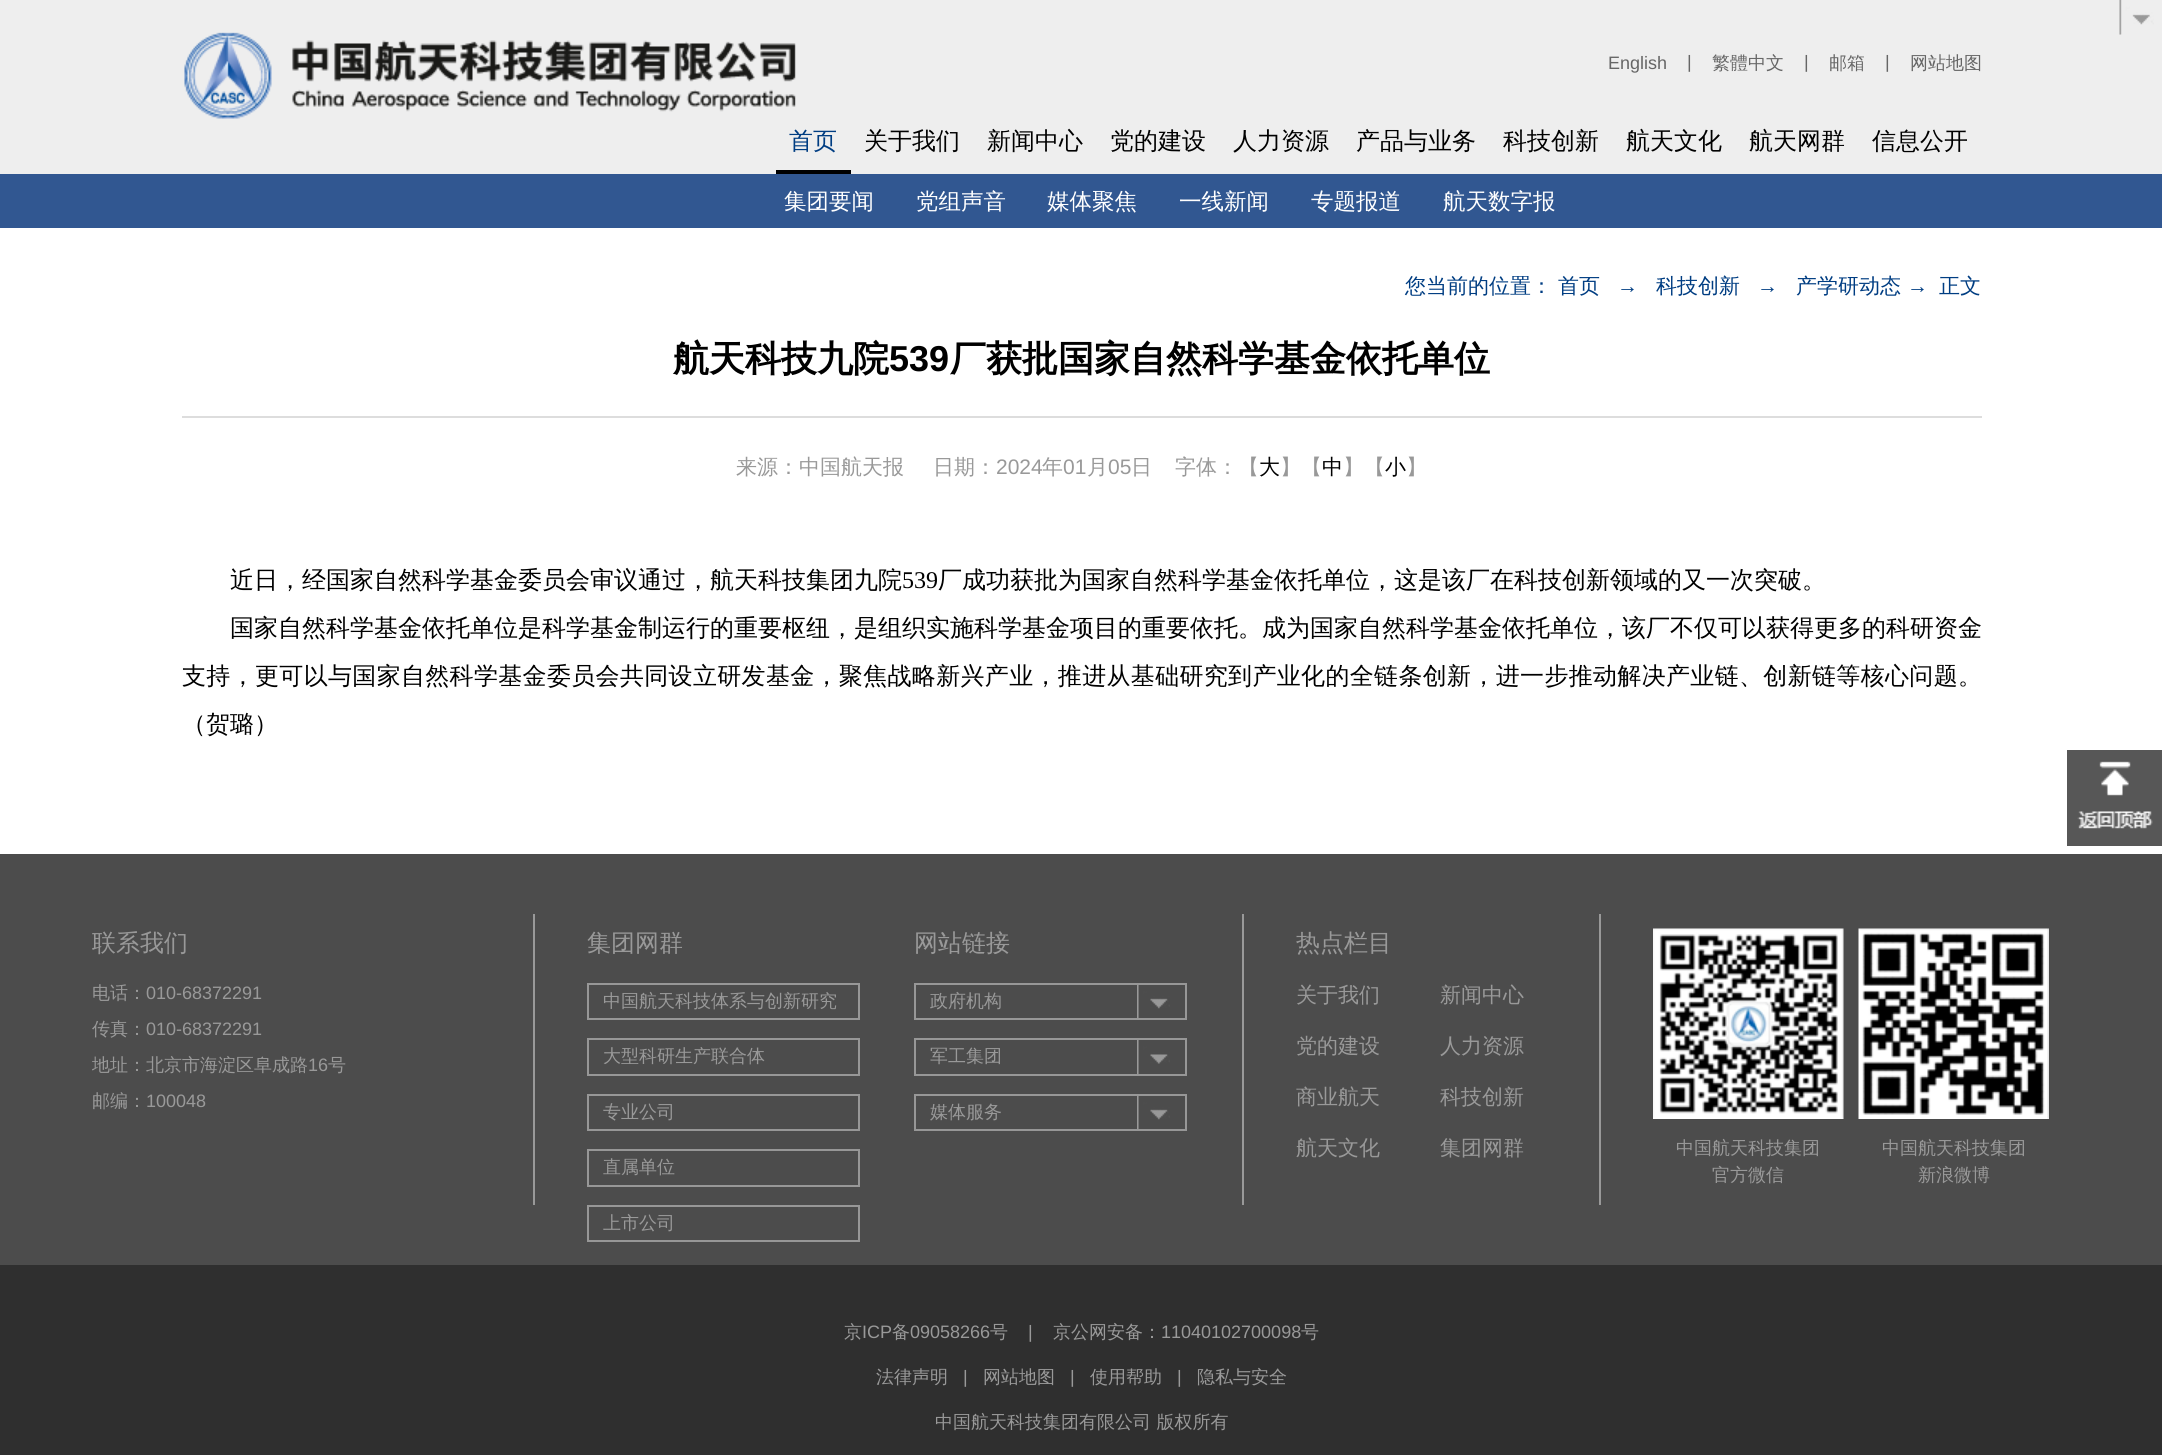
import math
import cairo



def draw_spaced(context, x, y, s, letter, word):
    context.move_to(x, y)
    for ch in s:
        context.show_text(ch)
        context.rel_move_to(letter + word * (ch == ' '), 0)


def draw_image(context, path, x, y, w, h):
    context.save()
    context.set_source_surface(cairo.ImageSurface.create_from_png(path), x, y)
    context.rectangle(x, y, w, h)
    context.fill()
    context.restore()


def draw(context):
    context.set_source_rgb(1, 1, 1)
    context.paint()
    context.set_source_rgb(238 / 255, 238 / 255, 238 / 255)
    context.rectangle(0, 0, 2162, 174)
    context.fill()
    draw_image(context, "images/1.png", 184, 32, 612, 87)
    context.set_source_rgb(0, 0, 0)
    context.rectangle(776, 170, 75, 4)
    context.fill()
    context.set_source_rgb(49 / 255, 87 / 255, 145 / 255)
    context.rectangle(0, 174, 2162, 54)
    context.fill()
    context.set_source_rgb(221 / 255, 221 / 255, 221 / 255)
    context.rectangle(182, 416, 1800, 2)
    context.fill()
    draw_image(context, "images/2.png", 2067, 750, 95, 96)
    context.set_source_rgb(76 / 255, 76 / 255, 76 / 255)
    context.rectangle(0, 854, 2162, 411)
    context.fill()
    context.set_source_rgb(153 / 255, 153 / 255, 153 / 255)
    context.rectangle(533, 914, 2, 291)
    context.fill()
    context.rectangle(1242, 914, 2, 291)
    context.fill()
    draw_image(context, "images/3.png", 2119, 0, 35, 35)
    context.rectangle(588, 984, 271, 35)
    context.set_source_rgb(151 / 255, 151 / 255, 151 / 255)
    context.stroke()
    context.rectangle(588, 1039, 271, 36)
    context.stroke()
    context.rectangle(588, 1095, 271, 35)
    context.stroke()
    context.rectangle(588, 1150, 271, 36)
    context.stroke()
    context.rectangle(588, 1206, 271, 35)
    context.stroke()
    context.rectangle(915, 984, 271, 35)
    context.stroke()
    draw_image(context, "images/4.png", 1137, 985, 33, 33)
    context.rectangle(915, 1039, 271, 36)
    context.stroke()
    draw_image(context, "images/5.png", 1137, 1040, 33, 34)
    context.rectangle(915, 1095, 271, 35)
    context.stroke()
    draw_image(context, "images/4.png", 1137, 1096, 33, 33)
    context.set_source_rgb(153 / 255, 153 / 255, 153 / 255)
    context.rectangle(1599, 914, 2, 291)
    context.fill()
    draw_image(context, "images/6.png", 1653, 928, 191, 191)
    draw_image(context, "images/7.png", 1858, 928, 191, 191)
    context.set_source_rgb(47 / 255, 47 / 255, 47 / 255)
    context.rectangle(0, 1265, 2162, 190)
    context.fill()
    context.select_font_face("Liberation Sans")
    context.set_font_size(18)
    context.set_source_rgb(102 / 255, 102 / 255, 102 / 255)
    context.move_to(1608, 69)
    context.show_text("English")
    context.move_to(1687, 68)
    context.show_text("|")
    context.select_font_face("WenQuanYi Zen Hei Medium")
    context.move_to(1712, 69)
    context.show_text("繁體中文")
    context.select_font_face("Liberation Sans")
    context.move_to(1804, 68)
    context.show_text("|")
    context.select_font_face("WenQuanYi Zen Hei Medium")
    context.move_to(1829, 69)
    context.show_text("邮箱")
    context.select_font_face("Liberation Sans")
    context.move_to(1885, 68)
    context.show_text("|")
    context.select_font_face("WenQuanYi Zen Hei Medium")
    context.move_to(1910, 69)
    context.show_text("网站地图")
    context.set_font_size(24)
    context.set_source_rgb(0, 61 / 255, 130 / 255)
    context.move_to(789, 149)
    context.show_text("首页")
    context.set_source_rgb(0, 0, 0)
    context.move_to(864, 149)
    context.show_text("关于我们")
    context.move_to(987, 149)
    context.show_text("新闻中心")
    context.move_to(1110, 149)
    context.show_text("党的建设")
    context.move_to(1233, 149)
    context.show_text("人力资源")
    context.move_to(1356, 149)
    context.show_text("产品与业务")
    context.move_to(1503, 149)
    context.show_text("科技创新")
    context.move_to(1626, 149)
    context.show_text("航天文化")
    context.move_to(1749, 149)
    context.show_text("航天网群")
    context.move_to(1872, 149)
    context.show_text("信息公开")
    context.set_font_size(22.5)
    context.set_source_rgb(1, 1, 1)
    context.move_to(784, 209)
    context.show_text("集团要闻")
    context.move_to(916, 209)
    context.show_text("党组声音")
    context.move_to(1047, 209)
    context.show_text("媒体聚焦")
    context.move_to(1179, 209)
    context.show_text("一线新闻")
    context.move_to(1311, 209)
    context.show_text("专题报道")
    context.move_to(1443, 209)
    context.show_text("航天数字报")
    context.set_font_size(21)
    context.set_source_rgb(0, 61 / 255, 130 / 255)
    context.move_to(1405, 293)
    context.show_text("您当前的位置：")
    context.move_to(1558, 293)
    context.show_text("首页")
    context.select_font_face("Liberation Sans")
    context.move_to(1617, 293)
    context.show_text("→")
    context.select_font_face("WenQuanYi Zen Hei Medium")
    context.move_to(1656, 293)
    context.show_text("科技创新")
    context.select_font_face("Liberation Sans")
    context.move_to(1757, 293)
    context.show_text("→")
    context.select_font_face("WenQuanYi Zen Hei Medium")
    context.move_to(1796, 293)
    context.show_text("产学研动态")
    context.select_font_face("Liberation Sans")
    context.move_to(1907, 293)
    context.show_text("→")
    context.select_font_face("WenQuanYi Zen Hei Medium")
    context.move_to(1939, 293)
    context.show_text("正文")
    context.select_font_face("WenQuanYi Zen Hei", cairo.FontSlant.NORMAL, cairo.FontWeight.BOLD)
    context.set_font_size(36)
    context.set_source_rgb(0, 0, 0)
    context.move_to(673, 371)
    context.show_text("航天科技九院")
    context.select_font_face("Liberation Sans", cairo.FontSlant.NORMAL, cairo.FontWeight.BOLD)
    context.move_to(889, 371)
    context.show_text("539")
    context.select_font_face("WenQuanYi Zen Hei", cairo.FontSlant.NORMAL, cairo.FontWeight.BOLD)
    context.move_to(950, 371)
    context.show_text("厂获批国家自然科学基金依托单位")
    context.select_font_face("WenQuanYi Zen Hei Medium")
    context.set_font_size(21)
    context.set_source_rgb(153 / 255, 153 / 255, 153 / 255)
    context.move_to(736, 474)
    context.show_text("来源：中国航天报")
    context.move_to(933, 474)
    context.show_text("日期：")
    context.select_font_face("Liberation Sans")
    context.move_to(996, 474)
    context.show_text("2024")
    context.select_font_face("WenQuanYi Zen Hei Medium")
    context.move_to(1042, 474)
    context.show_text("年")
    context.select_font_face("Liberation Sans")
    context.move_to(1063, 474)
    context.show_text("01")
    context.select_font_face("WenQuanYi Zen Hei Medium")
    context.move_to(1087, 474)
    context.show_text("月")
    context.select_font_face("Liberation Sans")
    context.move_to(1108, 474)
    context.show_text("05")
    context.select_font_face("WenQuanYi Zen Hei Medium")
    context.move_to(1131, 474)
    context.show_text("日")
    context.move_to(1175, 474)
    context.show_text("字体：【")
    context.set_source_rgb(0, 0, 0)
    context.move_to(1259, 474)
    context.show_text("大")
    context.set_source_rgb(153 / 255, 153 / 255, 153 / 255)
    context.move_to(1280, 474)
    context.show_text("】【")
    context.set_source_rgb(0, 0, 0)
    context.move_to(1322, 474)
    context.show_text("中")
    context.set_source_rgb(153 / 255, 153 / 255, 153 / 255)
    context.move_to(1343, 474)
    context.show_text("】【")
    context.set_source_rgb(0, 0, 0)
    context.move_to(1385, 474)
    context.show_text("小")
    context.set_source_rgb(153 / 255, 153 / 255, 153 / 255)
    context.move_to(1406, 474)
    context.show_text("】")
    context.set_font_size(24)
    context.set_source_rgb(0, 0, 0)
    context.move_to(230, 588)
    context.show_text("近日，经国家自然科学基金委员会审议通过，航天科技集团九院")
    context.select_font_face("Liberation Serif")
    context.move_to(902, 588)
    context.show_text("539")
    context.select_font_face("WenQuanYi Zen Hei Medium")
    context.move_to(938, 588)
    context.show_text("厂成功获批为国家自然科学基金依托单位，这是该厂在科技创新领域的又一次突破。")
    context.move_to(230, 636)
    context.show_text("国家自然科学基金依托单位是科学基金制运行的重要枢纽，是组织实施科学基金项目的重要依托。成为国家自然科学基金依托单位，该厂不仅可以获得更多的科研资金")
    draw_spaced(context, 182, 684, "支持，更可以与国家自然科学基金委员会共同设立研发基金，聚焦战略新兴产业，推进从基础研究到产业化的全链条创新，进一步推动解决产业链、创新链等核心问题。", 0.33, 0)
    context.move_to(182, 732)
    context.show_text("（贺璐）")
    context.set_source_rgb(153 / 255, 153 / 255, 153 / 255)
    context.move_to(92, 951)
    context.show_text("联系我们")
    context.set_font_size(18)
    context.move_to(92, 999)
    context.show_text("电话：")
    context.select_font_face("Liberation Sans")
    context.move_to(146, 999)
    context.show_text("010-68372291")
    context.select_font_face("WenQuanYi Zen Hei Medium")
    context.move_to(92, 1035)
    context.show_text("传真：")
    context.select_font_face("Liberation Sans")
    context.move_to(146, 1035)
    context.show_text("010-68372291")
    context.select_font_face("WenQuanYi Zen Hei Medium")
    context.move_to(92, 1071)
    context.show_text("地址：北京市海淀区阜成路")
    context.select_font_face("Liberation Sans")
    context.move_to(308, 1071)
    context.show_text("16")
    context.select_font_face("WenQuanYi Zen Hei Medium")
    context.move_to(328, 1071)
    context.show_text("号")
    context.move_to(92, 1107)
    context.show_text("邮编：")
    context.select_font_face("Liberation Sans")
    context.move_to(146, 1107)
    context.show_text("100048")
    context.select_font_face("WenQuanYi Zen Hei Medium")
    context.set_font_size(24)
    context.move_to(587, 951)
    context.show_text("集团网群")
    context.set_font_size(18)
    context.move_to(603, 1007)
    context.show_text("中国航天科技体系与创新研究")
    context.move_to(603, 1062)
    context.show_text("大型科研生产联合体")
    context.move_to(603, 1118)
    context.show_text("专业公司")
    context.move_to(603, 1173)
    context.show_text("直属单位")
    context.move_to(603, 1229)
    context.show_text("上市公司")
    context.set_font_size(24)
    context.move_to(914, 951)
    context.show_text("网站链接")
    context.set_font_size(18)
    context.move_to(930, 1007)
    context.show_text("政府机构")
    context.move_to(930, 1062)
    context.show_text("军工集团")
    context.move_to(930, 1118)
    context.show_text("媒体服务")
    context.set_font_size(24)
    context.move_to(1296, 951)
    context.show_text("热点栏目")
    context.set_font_size(21)
    context.move_to(1296, 1002)
    context.show_text("关于我们")
    context.move_to(1440, 1002)
    context.show_text("新闻中心")
    context.move_to(1296, 1053)
    context.show_text("党的建设")
    context.move_to(1440, 1053)
    context.show_text("人力资源")
    context.move_to(1296, 1104)
    context.show_text("商业航天")
    context.move_to(1440, 1104)
    context.show_text("科技创新")
    context.move_to(1296, 1155)
    context.show_text("航天文化")
    context.move_to(1440, 1155)
    context.show_text("集团网群")
    context.set_font_size(18)
    context.move_to(1676, 1154)
    context.show_text("中国航天科技集团")
    context.move_to(1712, 1181)
    context.show_text("官方微信")
    context.move_to(1882, 1154)
    context.show_text("中国航天科技集团")
    context.move_to(1918, 1181)
    context.show_text("新浪微博")
    context.move_to(844, 1338)
    context.show_text("京")
    context.select_font_face("Liberation Sans")
    context.move_to(862, 1338)
    context.show_text("ICP")
    context.select_font_face("WenQuanYi Zen Hei Medium")
    context.move_to(892, 1338)
    context.show_text("备")
    context.select_font_face("Liberation Sans")
    context.move_to(910, 1338)
    context.show_text("09058266")
    context.select_font_face("WenQuanYi Zen Hei Medium")
    context.move_to(990, 1338)
    context.show_text("号")
    context.select_font_face("Liberation Sans")
    context.move_to(1028, 1338)
    context.show_text("|")
    context.select_font_face("WenQuanYi Zen Hei Medium")
    context.move_to(1053, 1338)
    context.show_text("京公网安备：")
    context.select_font_face("Liberation Sans")
    context.move_to(1161, 1338)
    context.show_text("11040102700098")
    context.select_font_face("WenQuanYi Zen Hei Medium")
    context.move_to(1301, 1338)
    context.show_text("号")
    context.move_to(876, 1383)
    context.show_text("法律声明")
    context.select_font_face("Liberation Sans")
    context.move_to(963, 1383)
    context.show_text("|")
    context.select_font_face("WenQuanYi Zen Hei Medium")
    context.move_to(983, 1383)
    context.show_text("网站地图")
    context.select_font_face("Liberation Sans")
    context.move_to(1070, 1383)
    context.show_text("|")
    context.select_font_face("WenQuanYi Zen Hei Medium")
    context.move_to(1090, 1383)
    context.show_text("使用帮助")
    context.select_font_face("Liberation Sans")
    context.move_to(1177, 1383)
    context.show_text("|")
    context.select_font_face("WenQuanYi Zen Hei Medium")
    context.move_to(1197, 1383)
    context.show_text("隐私与安全")
    context.move_to(935, 1428)
    context.show_text("中国航天科技集团有限公司 版权所有")


surface = cairo.ImageSurface(cairo.Format.RGB24, 2162, 1455)
context = cairo.Context(surface)
options = cairo.FontOptions()
options.set_hint_metrics(cairo.HintMetrics.OFF)
options.set_hint_style(cairo.HintStyle.NONE)
context.set_font_options(options)
context.set_miter_limit(4)
draw(context)
surface.write_to_png("out.png")
